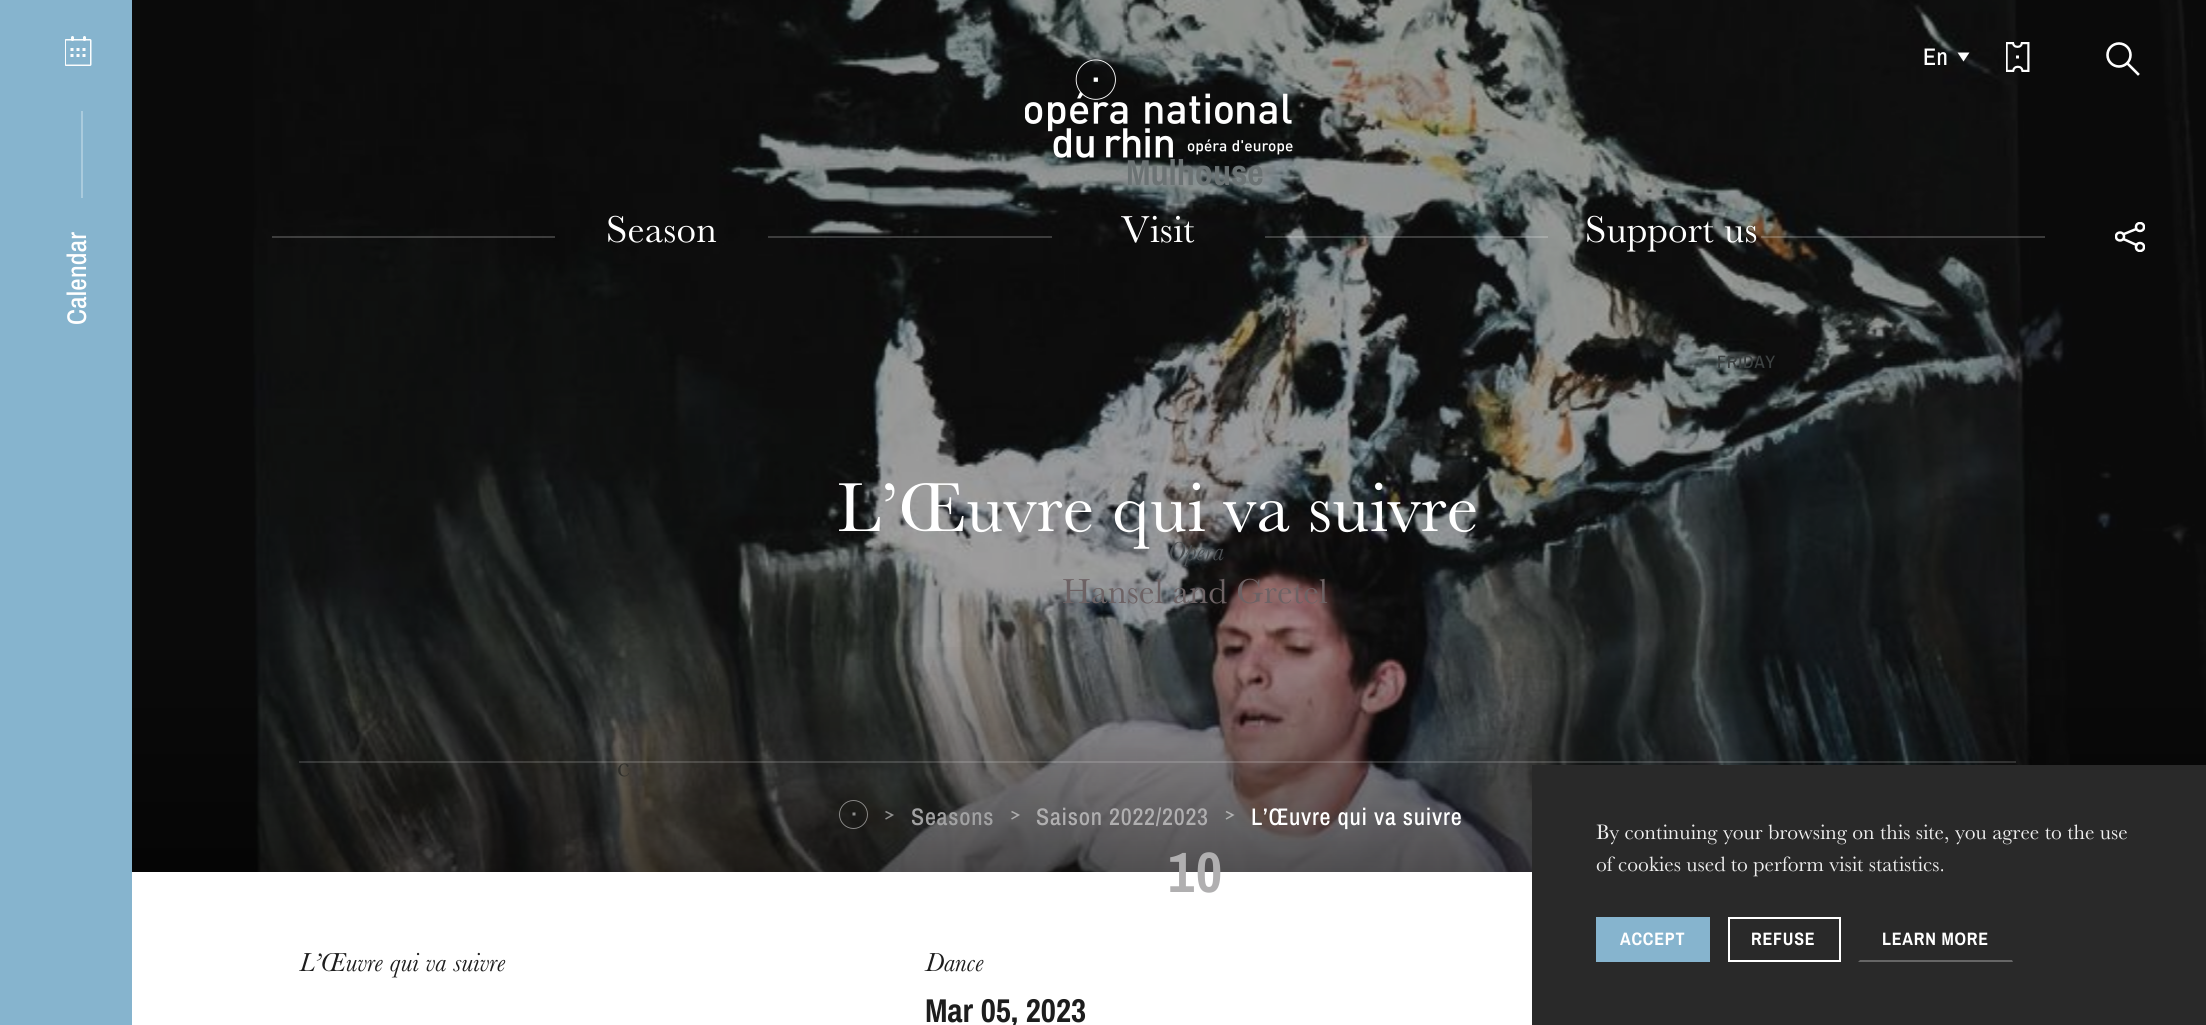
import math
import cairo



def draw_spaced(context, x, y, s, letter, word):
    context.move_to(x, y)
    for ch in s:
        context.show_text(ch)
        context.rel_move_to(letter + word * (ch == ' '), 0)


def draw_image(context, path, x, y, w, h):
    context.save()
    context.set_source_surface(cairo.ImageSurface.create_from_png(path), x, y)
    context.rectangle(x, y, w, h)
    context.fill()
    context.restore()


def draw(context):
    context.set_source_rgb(1, 1, 1)
    context.paint()
    context.set_source_rgb(29 / 255, 29 / 255, 29 / 255)
    context.rectangle(132, 0, 2074, 872)
    context.fill()
    draw_image(context, "images/3.png", 132, 0, 2074, 872)
    context.set_source_rgb(1, 1, 1)
    context.new_path()
    context.move_to(1957.5, 52.5)
    context.line_to(1969.5, 52.5)
    context.line_to(1963.5, 61.5)
    context.close_path()
    context.fill()
    draw_image(context, "images/1.png", 2006, 42, 24, 30)
    context.arc(2119, 55, 11.5, 0, 2 * math.pi)
    context.set_line_width(2.6)
    context.stroke()
    context.new_path()
    context.move_to(2127.5, 63.5)
    context.line_to(2138, 74)
    context.set_line_cap(cairo.LineCap.SQUARE)
    context.stroke()
    draw_image(context, "images/2.png", 1025, 59, 268, 99)
    context.set_source_rgba(1, 1, 1, 0.2)
    context.rectangle(272, 236, 283, 2)
    context.fill()
    context.rectangle(768, 236, 284, 2)
    context.fill()
    context.rectangle(1265, 236, 283, 2)
    context.fill()
    context.rectangle(1761, 236, 284, 2)
    context.fill()
    context.save()
    context.rectangle(2115, 222, 30, 30)
    context.clip()
    context.arc(2120, 236.5, 4, 0, 2 * math.pi)
    context.set_source_rgb(1, 1, 1)
    context.set_line_width(2.5)
    context.set_line_cap(cairo.LineCap.BUTT)
    context.stroke()
    context.arc(2140, 227, 4, 0, 2 * math.pi)
    context.stroke()
    context.arc(2140, 247, 4, 0, 2 * math.pi)
    context.stroke()
    context.restore()
    context.new_path()
    context.move_to(2124, 234)
    context.line_to(2135, 229.5)
    context.move_to(2124.5, 239.5)
    context.line_to(2136.5, 245)
    context.set_source_rgb(1, 1, 1)
    context.set_line_width(2.5)
    context.stroke()
    gradient = cairo.LinearGradient(1158, 0, 1158, 872)
    gradient.add_color_stop_rgba(0.73, 0, 0, 0, 0)
    gradient.add_color_stop_rgba(1, 0, 0, 0, 0.5)
    context.set_source(gradient)
    context.rectangle(132, 647, 2074, 225)
    context.fill()
    context.set_source_rgba(1, 1, 1, 0.15)
    context.rectangle(299, 761, 1717, 2)
    context.fill()
    context.arc(853.5, 814.5, 14, 0, 2 * math.pi)
    context.set_source_rgba(1, 1, 1, 0.5)
    context.set_line_width(0.9)
    context.set_line_cap(cairo.LineCap.BUTT)
    context.stroke()
    context.set_source_rgb(141 / 255, 141 / 255, 140 / 255)
    context.new_path()
    context.move_to(852.5, 812.5)
    context.line_to(855.5, 812.5)
    context.line_to(855.5, 815.5)
    context.line_to(852.5, 815.5)
    context.close_path()
    context.fill()
    context.new_path()
    context.move_to(885.5, 819)
    context.line_to(892.5, 815)
    context.line_to(885.5, 811.5)
    context.set_source_rgba(1, 1, 1, 0.5)
    context.set_line_width(1.5)
    context.stroke()
    context.new_path()
    context.move_to(1011.5, 819)
    context.line_to(1018.5, 815)
    context.line_to(1011.5, 811.5)
    context.stroke()
    context.new_path()
    context.move_to(1226, 819)
    context.line_to(1233, 815)
    context.line_to(1226, 811.5)
    context.stroke()
    context.set_source_rgb(134 / 255, 180 / 255, 206 / 255)
    context.rectangle(0, 0, 132, 1025)
    context.fill()
    draw_image(context, "images/4.png", 65, 36, 27, 30)
    context.set_source_rgb(170 / 255, 203 / 255, 221 / 255)
    context.rectangle(81, 111, 2, 87)
    context.fill()
    context.set_source_rgb(41 / 255, 41 / 255, 41 / 255)
    context.rectangle(1532, 765, 674, 260)
    context.fill()
    context.set_source_rgb(134 / 255, 180 / 255, 206 / 255)
    context.rectangle(1596, 917, 114, 45)
    context.fill()
    context.rectangle(1729, 918, 111, 43)
    context.set_source_rgb(1, 1, 1)
    context.set_line_width(2)
    context.stroke()
    context.set_source_rgb(102 / 255, 102 / 255, 102 / 255)
    context.new_path()
    context.move_to(2013, 962)
    context.line_to(1858, 962)
    context.line_to(1860, 960)
    context.line_to(2012, 960)
    context.close_path()
    context.fill()
    context.select_font_face("Archivo Narrow Medium")
    context.set_font_size(24)
    context.set_source_rgb(1, 1, 1)
    draw_spaced(context, 1923, 65, "En", 0.25, 0)
    context.select_font_face("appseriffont")
    context.set_font_size(39)
    draw_spaced(context, 606, 242, "Season", 0.25, 0)
    draw_spaced(context, 1121, 242, "Visit", 0.25, 0)
    draw_spaced(context, 1585, 242, "Support us", 0.25, 0)
    context.set_font_size(72)
    context.move_to(837, 531)
    context.show_text("L’Œuvre qui va suivre")
    context.select_font_face("Archivo Narrow Medium")
    context.set_font_size(24)
    context.set_source_rgb(162 / 255, 162 / 255, 163 / 255)
    draw_spaced(context, 911, 825, "Seasons", 0.75, 0)
    context.set_source_rgb(176 / 255, 175 / 255, 176 / 255)
    draw_spaced(context, 1036, 825, "Saison 2022/2023", 0.75, 0)
    context.set_source_rgb(1, 1, 1)
    draw_spaced(context, 1251, 825, "L’Œuvre qui va suivre", 0.75, 0)
    context.select_font_face("appseriffont", cairo.FontSlant.ITALIC)
    context.set_font_size(27)
    context.set_source_rgb(29 / 255, 29 / 255, 29 / 255)
    context.move_to(299, 971)
    context.show_text("L’Œuvre qui va suivre")
    context.move_to(925, 971)
    context.show_text("Dance")
    context.select_font_face("Archivo Narrow", cairo.FontSlant.NORMAL, cairo.FontWeight.BOLD)
    context.set_font_size(33)
    context.move_to(925, 1022)
    context.show_text("Mar 05, 2023")
    context.set_font_size(36)
    context.set_source_rgb(107 / 255, 114 / 255, 115 / 255)
    context.move_to(1126, 185)
    context.show_text("Mulhouse")
    context.select_font_face("Archivo Narrow Medium")
    context.set_font_size(18)
    context.set_source_rgb(60 / 255, 65 / 255, 65 / 255)
    draw_spaced(context, 1717, 368, "FRIDAY", 0.75, 0)
    context.select_font_face("appseriffont", cairo.FontSlant.ITALIC)
    context.set_font_size(27)
    context.set_source_rgb(75 / 255, 79 / 255, 82 / 255)
    context.move_to(1167, 560)
    context.show_text("Opera")
    context.select_font_face("appseriffont")
    context.set_font_size(36)
    context.set_source_rgb(109 / 255, 98 / 255, 100 / 255)
    context.move_to(1062, 603)
    context.show_text("Hansel and Gretel")
    context.set_font_size(30)
    context.set_source_rgb(49 / 255, 48 / 255, 44 / 255)
    context.move_to(617, 776)
    context.show_text("c")
    context.select_font_face("Archivo Narrow", cairo.FontSlant.NORMAL, cairo.FontWeight.BOLD)
    context.set_font_size(57)
    context.set_source_rgb(176 / 255, 175 / 255, 176 / 255)
    draw_spaced(context, 1168, 892, "10", 2, 0)
    context.select_font_face("Archivo Narrow Medium")
    context.set_font_size(27)
    context.set_source_rgb(1, 1, 1)
    context.save()
    context.translate(86, 325)
    context.rotate(-90 * math.pi / 180)
    draw_spaced(context, 0, 0, "Calendar", 0.25, 0)
    context.restore()
    context.select_font_face("appseriffont")
    context.set_font_size(21.6)
    context.set_source_rgb(238 / 255, 238 / 255, 238 / 255)
    context.move_to(1596, 839)
    context.show_text("By continuing your browsing on this site, you agree to the use")
    context.move_to(1596, 871)
    context.show_text("of cookies used to perform visit statistics.")
    context.select_font_face("Archivo Narrow", cairo.FontSlant.NORMAL, cairo.FontWeight.BOLD)
    context.set_font_size(18)
    context.set_source_rgb(1, 1, 1)
    draw_spaced(context, 1620, 945, "ACCEPT", 0.75, 0)
    draw_spaced(context, 1751, 945, "REFUSE", 0.75, 0)
    draw_spaced(context, 1882, 945, "LEARN MORE", 0.75, 0)


surface = cairo.ImageSurface(cairo.Format.RGB24, 2206, 1025)
context = cairo.Context(surface)
options = cairo.FontOptions()
options.set_hint_metrics(cairo.HintMetrics.OFF)
options.set_hint_style(cairo.HintStyle.NONE)
context.set_font_options(options)
context.set_miter_limit(4)
draw(context)
surface.write_to_png("out.png")
